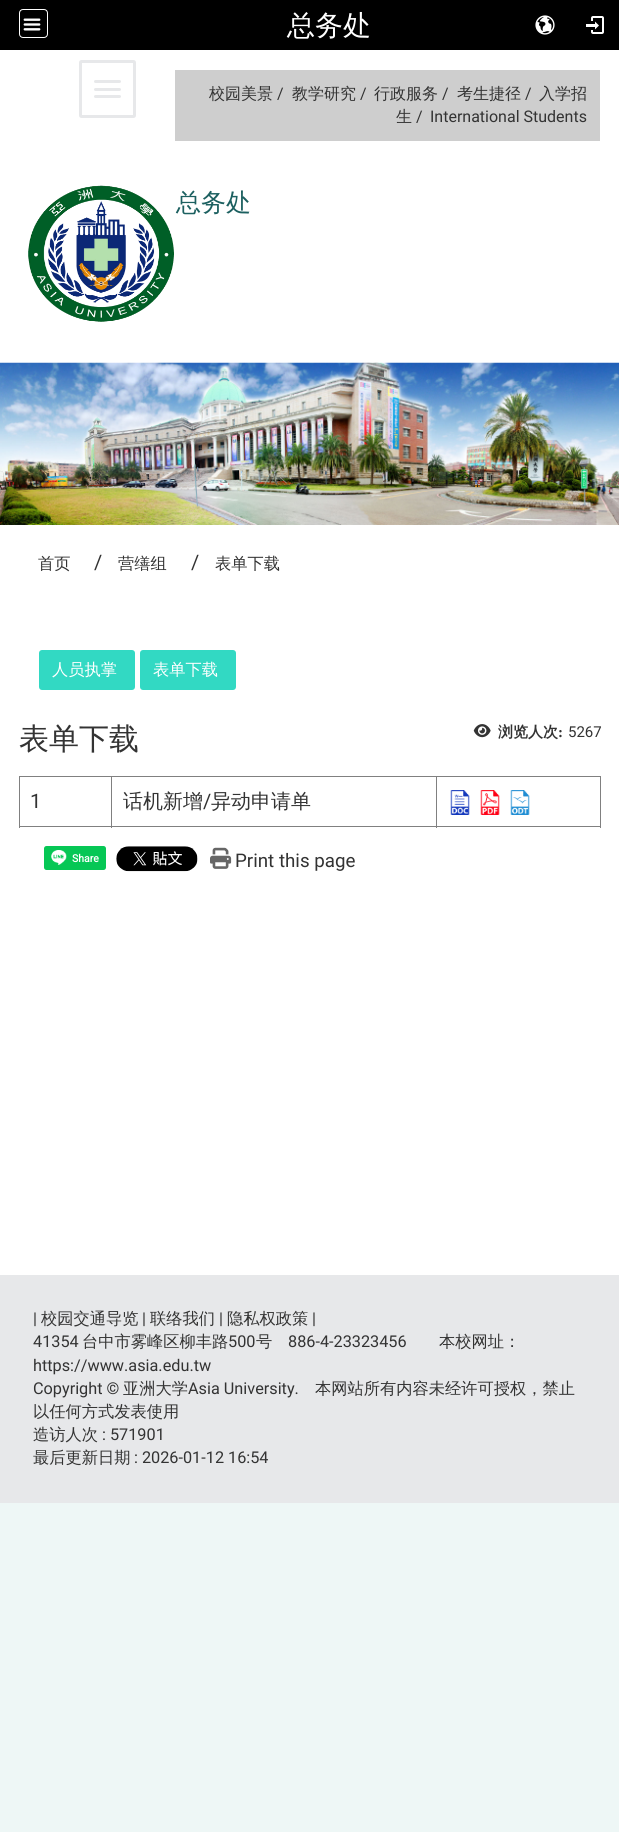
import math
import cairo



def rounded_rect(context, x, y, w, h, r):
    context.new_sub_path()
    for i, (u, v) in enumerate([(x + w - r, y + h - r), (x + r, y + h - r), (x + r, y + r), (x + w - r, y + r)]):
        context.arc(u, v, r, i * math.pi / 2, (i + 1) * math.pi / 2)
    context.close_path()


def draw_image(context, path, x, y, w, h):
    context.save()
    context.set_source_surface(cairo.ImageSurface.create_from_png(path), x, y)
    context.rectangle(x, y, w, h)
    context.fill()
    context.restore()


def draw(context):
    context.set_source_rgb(238 / 255, 247 / 255, 246 / 255)
    context.paint()
    context.set_source_rgb(0, 0, 0)
    context.rectangle(0, 0, 619, 50)
    context.fill()
    rounded_rect(context, 19.5, 9.5, 28, 28, 3.5)
    context.set_source_rgb(1, 1, 1)
    context.set_line_width(1)
    context.stroke()
    draw_image(context, "images/1.png", 23, 18, 18, 13)
    draw_image(context, "images/2.png", 535, 15, 20, 20)
    draw_image(context, "images/3.png", 586, 16, 18, 18)
    context.rectangle(0, 50, 619, 313)
    context.fill()
    context.set_source_rgb(206 / 255, 206 / 255, 206 / 255)
    context.rectangle(175, 70, 425, 71)
    context.fill()
    rounded_rect(context, 80.5, 61.5, 54, 55, 1)
    context.set_source_rgb(231 / 255, 232 / 255, 234 / 255)
    context.set_line_width(3)
    context.stroke()
    rounded_rect(context, 94, 80, 27, 3, 1.5)
    context.fill()
    rounded_rect(context, 94, 88, 27, 3, 1.5)
    context.fill()
    rounded_rect(context, 94, 95, 27, 3, 1.5)
    context.fill()
    draw_image(context, "images/4.png", 28, 185, 146, 137)
    draw_image(context, "images/5.png", 0, 362, 619, 163)
    context.set_source_rgb(1, 1, 1)
    context.rectangle(0, 525, 619, 750)
    context.fill()
    context.set_source_rgb(50 / 255, 217 / 255, 195 / 255)
    rounded_rect(context, 39, 650, 96, 40, 3)
    context.fill()
    rounded_rect(context, 140, 650, 96, 40, 3)
    context.fill()
    draw_image(context, "images/6.png", 473, 724, 18, 14)
    context.set_source_rgb(128 / 255, 128 / 255, 128 / 255)
    context.rectangle(19, 776, 582, 1)
    context.fill()
    context.rectangle(600, 776, 1, 52)
    context.fill()
    context.rectangle(19, 826, 582, 1)
    context.fill()
    context.rectangle(19, 776, 1, 52)
    context.fill()
    context.rectangle(111, 776, 1, 52)
    context.fill()
    context.rectangle(436, 776, 1, 52)
    context.fill()
    draw_image(context, "images/7.png", 450, 790, 20, 25)
    draw_image(context, "images/8.png", 480, 790, 20, 25)
    draw_image(context, "images/9.png", 510, 790, 20, 25)
    context.set_source_rgb(6 / 255, 199 / 255, 85 / 255)
    rounded_rect(context, 44, 846, 62, 24, 2.5)
    context.fill()
    draw_image(context, "images/10.png", 51, 850, 16, 15)
    draw_image(context, "images/11.png", 116, 846, 82, 26)
    draw_image(context, "images/12.png", 210, 847, 22, 22)
    context.set_source_rgb(231 / 255, 232 / 255, 234 / 255)
    context.rectangle(0, 1275, 619, 228)
    context.fill()
    context.select_font_face("WenQuanYi Zen Hei Medium")
    context.set_font_size(28)
    context.set_source_rgb(1, 1, 1)
    context.move_to(287, 35)
    context.show_text("总务处")
    context.set_font_size(16)
    context.set_source_rgb(51 / 255, 51 / 255, 51 / 255)
    context.move_to(209, 99)
    context.show_text("校园美景")
    context.select_font_face("Roboto")
    context.move_to(277, 99)
    context.show_text("/")
    context.select_font_face("WenQuanYi Zen Hei Medium")
    context.move_to(292, 99)
    context.show_text("教学研究")
    context.select_font_face("Roboto")
    context.move_to(360, 99)
    context.show_text("/")
    context.select_font_face("WenQuanYi Zen Hei Medium")
    context.move_to(374, 99)
    context.show_text("行政服务")
    context.select_font_face("Roboto")
    context.move_to(442, 99)
    context.show_text("/")
    context.select_font_face("WenQuanYi Zen Hei Medium")
    context.move_to(457, 99)
    context.show_text("考生捷径")
    context.select_font_face("Roboto")
    context.move_to(525, 99)
    context.show_text("/")
    context.select_font_face("WenQuanYi Zen Hei Medium")
    context.move_to(539, 99)
    context.show_text("入学招")
    context.move_to(396, 122)
    context.show_text("生")
    context.select_font_face("Roboto")
    context.move_to(416, 122)
    context.show_text("/")
    context.move_to(430, 122)
    context.show_text("International Students")
    context.select_font_face("WenQuanYi Zen Hei Medium")
    context.set_font_size(25)
    context.set_source_rgb(28 / 255, 96 / 255, 96 / 255)
    context.move_to(176, 211)
    context.show_text("总务处")
    context.set_font_size(16.25)
    context.set_source_rgb(51 / 255, 51 / 255, 51 / 255)
    context.move_to(38, 569)
    context.show_text("首页")
    context.select_font_face("Roboto")
    context.set_font_size(20)
    context.move_to(94, 569)
    context.show_text("/")
    context.select_font_face("WenQuanYi Zen Hei Medium")
    context.set_font_size(16.25)
    context.move_to(118, 569)
    context.show_text("营缮组")
    context.select_font_face("Roboto")
    context.set_font_size(20)
    context.move_to(191, 569)
    context.show_text("/")
    context.select_font_face("WenQuanYi Zen Hei Medium")
    context.set_font_size(16.25)
    context.move_to(215, 569)
    context.show_text("表单下载")
    context.set_source_rgb(1, 1, 1)
    context.move_to(52, 675)
    context.show_text("人员执掌")
    context.move_to(153, 675)
    context.show_text("表单下载")
    context.set_font_size(30)
    context.set_source_rgb(51 / 255, 51 / 255, 51 / 255)
    context.move_to(19, 749)
    context.show_text("表单下载")
    context.select_font_face("WenQuanYi Zen Hei", cairo.FontSlant.NORMAL, cairo.FontWeight.BOLD)
    context.set_font_size(15)
    context.move_to(498, 737)
    context.show_text("浏览人次")
    context.select_font_face("Liberation Serif", cairo.FontSlant.NORMAL, cairo.FontWeight.BOLD)
    context.move_to(558, 737)
    context.show_text(":")
    context.select_font_face("Roboto")
    context.move_to(568, 737)
    context.show_text("5267")
    context.set_font_size(20)
    context.move_to(30, 808)
    context.show_text("1")
    context.select_font_face("WenQuanYi Zen Hei Medium")
    context.move_to(123, 808)
    context.show_text("话机新增")
    context.select_font_face("Roboto")
    context.move_to(203, 808)
    context.show_text("/")
    context.select_font_face("WenQuanYi Zen Hei Medium")
    context.move_to(211, 808)
    context.show_text("异动申请单")
    context.select_font_face("Roboto", cairo.FontSlant.NORMAL, cairo.FontWeight.BOLD)
    context.set_font_size(10.5)
    context.set_source_rgb(1, 1, 1)
    context.move_to(72, 862)
    context.show_text("Share")
    context.select_font_face("Roboto")
    context.set_font_size(18.75)
    context.set_source_rgb(51 / 255, 51 / 255, 51 / 255)
    context.move_to(235, 867)
    context.show_text("Print this page")
    context.set_font_size(16.25)
    context.move_to(33, 1324)
    context.show_text("|")
    context.select_font_face("WenQuanYi Zen Hei Medium")
    context.move_to(41, 1324)
    context.show_text("校园交通导览")
    context.select_font_face("Roboto")
    context.move_to(142, 1324)
    context.show_text("|")
    context.select_font_face("WenQuanYi Zen Hei Medium")
    context.move_to(150, 1324)
    context.show_text("联络我们")
    context.select_font_face("Roboto")
    context.move_to(219, 1324)
    context.show_text("|")
    context.select_font_face("WenQuanYi Zen Hei Medium")
    context.move_to(227, 1324)
    context.show_text("隐私权政策")
    context.select_font_face("Roboto")
    context.move_to(312, 1324)
    context.show_text("|")
    context.move_to(33, 1347)
    context.show_text("41354")
    context.select_font_face("WenQuanYi Zen Hei Medium")
    context.move_to(82, 1347)
    context.show_text("台中市雾峰区柳丰路")
    context.select_font_face("Roboto")
    context.move_to(228, 1347)
    context.show_text("500")
    context.select_font_face("WenQuanYi Zen Hei Medium")
    context.move_to(256, 1347)
    context.show_text("号")
    context.select_font_face("Roboto")
    context.move_to(288, 1347)
    context.show_text("886-4-23323456")
    context.select_font_face("WenQuanYi Zen Hei Medium")
    context.move_to(439, 1347)
    context.show_text("本校网址：")
    context.select_font_face("Roboto")
    context.move_to(33, 1371)
    context.show_text("https://www.asia.edu.tw")
    context.move_to(33, 1394)
    context.show_text("Copyright ©")
    context.select_font_face("WenQuanYi Zen Hei Medium")
    context.move_to(123, 1394)
    context.show_text("亚洲大学")
    context.select_font_face("Roboto")
    context.move_to(188, 1394)
    context.show_text("Asia University.")
    context.select_font_face("WenQuanYi Zen Hei Medium")
    context.move_to(315, 1394)
    context.show_text("本网站所有内容未经许可授权，禁止")
    context.move_to(33, 1417)
    context.show_text("以任何方式发表使用")
    context.move_to(33, 1440)
    context.show_text("造访人次")
    context.select_font_face("Roboto")
    context.move_to(102, 1440)
    context.show_text(": 571901")
    context.select_font_face("WenQuanYi Zen Hei Medium")
    context.move_to(33, 1463)
    context.show_text("最后更新日期")
    context.select_font_face("Roboto")
    context.move_to(134, 1463)
    context.show_text(": 2026-01-12 16:54")


surface = cairo.ImageSurface(cairo.Format.RGB24, 619, 1832)
context = cairo.Context(surface)
options = cairo.FontOptions()
options.set_hint_metrics(cairo.HintMetrics.OFF)
options.set_hint_style(cairo.HintStyle.NONE)
context.set_font_options(options)
context.set_miter_limit(4)
draw(context)
surface.write_to_png("out.png")
